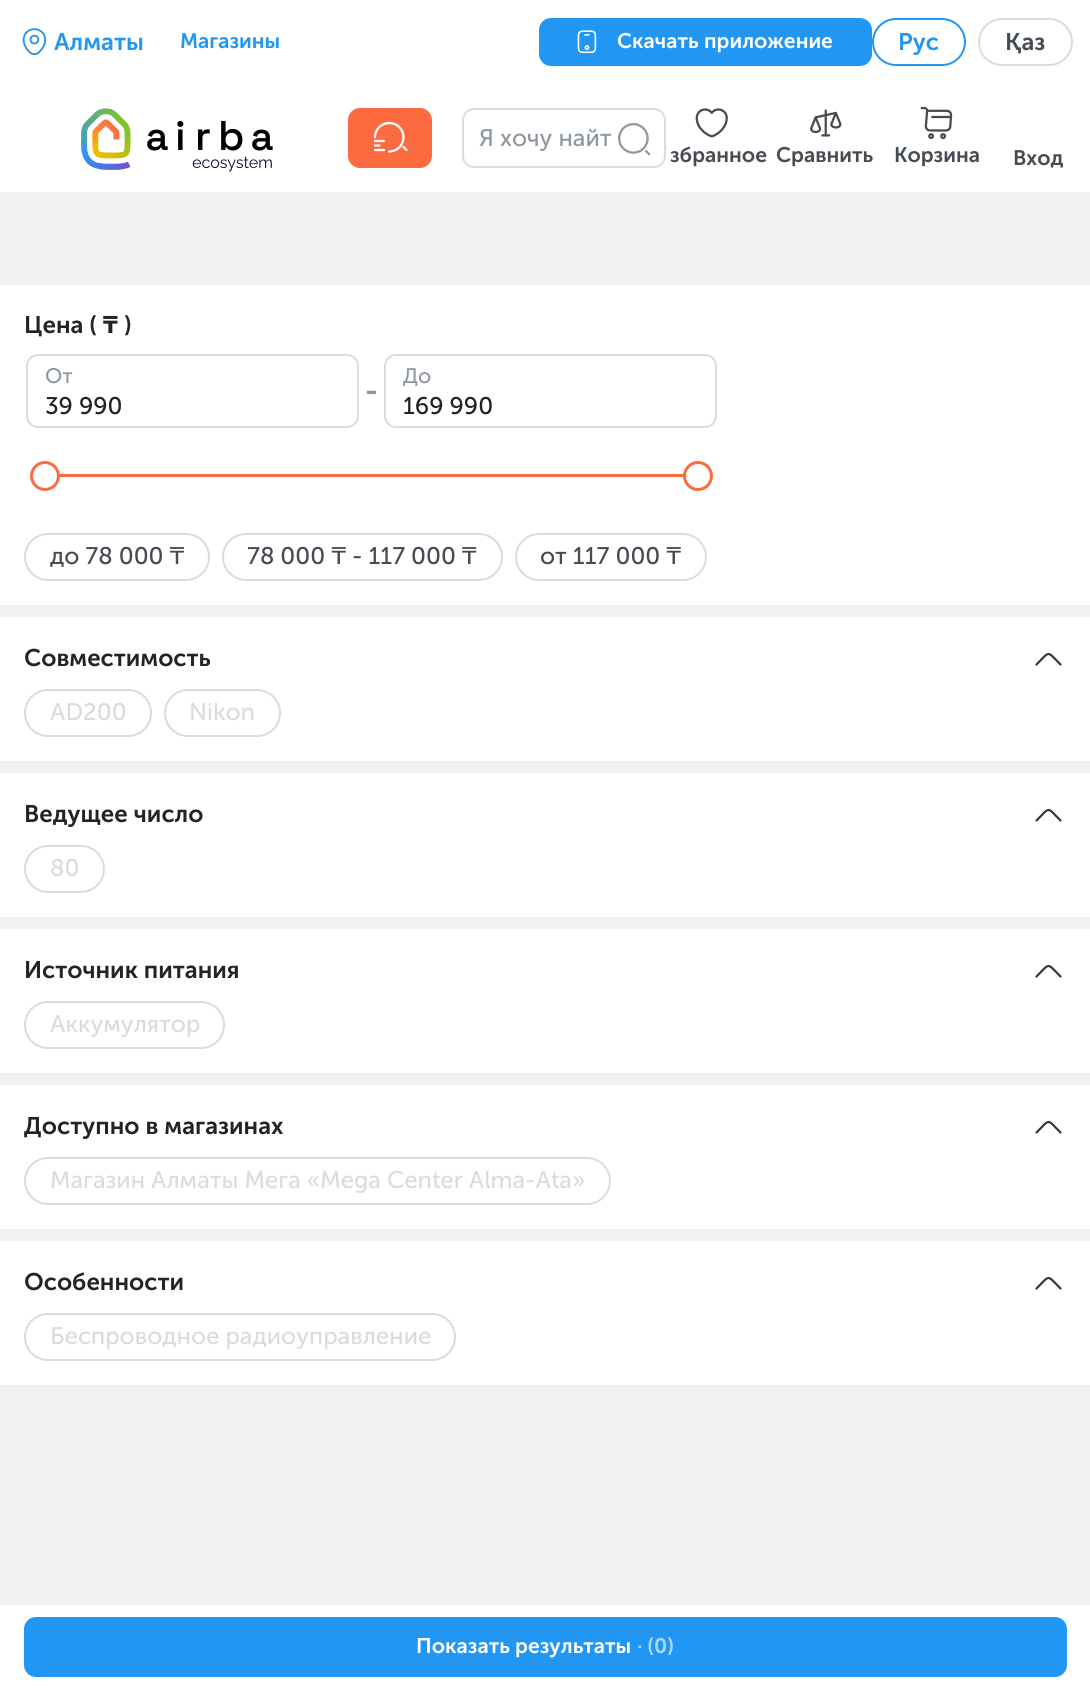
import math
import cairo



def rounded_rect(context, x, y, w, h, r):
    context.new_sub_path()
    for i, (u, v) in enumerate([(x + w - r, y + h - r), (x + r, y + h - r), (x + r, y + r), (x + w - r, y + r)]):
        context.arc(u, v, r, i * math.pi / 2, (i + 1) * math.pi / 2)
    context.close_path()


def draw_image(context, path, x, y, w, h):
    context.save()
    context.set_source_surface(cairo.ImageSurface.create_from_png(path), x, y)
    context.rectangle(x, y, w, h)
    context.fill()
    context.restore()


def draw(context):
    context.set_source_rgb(240 / 255, 241 / 255, 242 / 255)
    context.paint()
    context.set_source_rgb(1, 1, 1)
    context.rectangle(0, 0, 1090, 192)
    context.fill()
    draw_image(context, "images/1.png", 22, 28, 25, 28)
    context.set_source_rgb(33 / 255, 150 / 255, 243 / 255)
    rounded_rect(context, 539, 18, 333, 48, 12)
    context.fill()
    draw_image(context, "images/2.png", 577, 30, 20, 24)
    rounded_rect(context, 873, 19, 92, 46, 23)
    context.stroke()
    rounded_rect(context, 979, 19, 93, 46, 23)
    context.set_source_rgb(217 / 255, 220 / 255, 222 / 255)
    context.stroke()
    draw_image(context, "images/3.png", 81, 108, 50, 62)
    draw_image(context, "images/4.png", 147, 129, 21, 22)
    draw_image(context, "images/5.png", 177, 120, 7, 30)
    draw_image(context, "images/6.png", 198, 129, 12, 21)
    draw_image(context, "images/7.png", 221, 120, 22, 31)
    draw_image(context, "images/4.png", 252, 129, 21, 22)
    draw_image(context, "images/8.png", 192, 156, 80, 16)
    context.set_source_rgb(252 / 255, 107 / 255, 63 / 255)
    rounded_rect(context, 348, 108, 84, 60, 12)
    context.fill()
    draw_image(context, "images/9.png", 373, 121, 35, 32)
    rounded_rect(context, 463, 109, 202, 58, 11)
    context.set_source_rgb(217 / 255, 220 / 255, 222 / 255)
    context.stroke()
    draw_image(context, "images/10.png", 618, 123, 33, 33)
    draw_image(context, "images/11.png", 695, 108, 33, 30)
    draw_image(context, "images/12.png", 810, 109, 32, 28)
    draw_image(context, "images/13.png", 920, 106, 33, 34)
    context.set_source_rgb(1, 1, 1)
    context.rectangle(0, 285, 1090, 320)
    context.fill()
    rounded_rect(context, 27, 355, 331, 72, 11)
    context.set_source_rgb(217 / 255, 220 / 255, 222 / 255)
    context.stroke()
    rounded_rect(context, 385, 355, 331, 72, 11)
    context.stroke()
    context.set_source_rgb(252 / 255, 107 / 255, 63 / 255)
    context.rectangle(59, 474, 625, 3)
    context.fill()
    context.set_source_rgb(1, 1, 1)
    context.arc(45, 476, 13.5, 0, 2 * math.pi)
    context.fill_preserve()
    context.set_source_rgb(252 / 255, 107 / 255, 63 / 255)
    context.set_line_width(3)
    context.stroke()
    context.set_source_rgb(1, 1, 1)
    context.arc(698, 476, 13.5, 0, 2 * math.pi)
    context.fill_preserve()
    context.set_source_rgb(252 / 255, 107 / 255, 63 / 255)
    context.stroke()
    rounded_rect(context, 25, 534, 184, 46, 23)
    context.set_source_rgb(217 / 255, 220 / 255, 222 / 255)
    context.set_line_width(2)
    context.stroke()
    rounded_rect(context, 223, 534, 279, 46, 23)
    context.stroke()
    rounded_rect(context, 516, 534, 190, 46, 23)
    context.stroke()
    context.set_source_rgb(1, 1, 1)
    context.rectangle(0, 617, 1090, 144)
    context.fill()
    context.new_path()
    context.move_to(1036.5, 664.5)
    context.curve_to(1050.5, 650.5, 1046.5, 650.5, 1060.5, 664.5)
    context.set_source_rgb(51 / 255, 56 / 255, 61 / 255)
    context.set_line_width(2.2)
    context.set_line_cap(cairo.LineCap.ROUND)
    context.set_line_join(cairo.LineJoin.ROUND)
    context.stroke()
    rounded_rect(context, 25, 690, 126, 46, 23)
    context.set_source_rgb(217 / 255, 220 / 255, 222 / 255)
    context.set_line_width(2)
    context.set_line_cap(cairo.LineCap.BUTT)
    context.set_line_join(cairo.LineJoin.MITER)
    context.stroke()
    rounded_rect(context, 165, 690, 115, 46, 23)
    context.stroke()
    context.set_source_rgb(1, 1, 1)
    context.rectangle(0, 773, 1090, 144)
    context.fill()
    context.new_path()
    context.move_to(1036.5, 820.5)
    context.curve_to(1050.5, 806.5, 1046.5, 806.5, 1060.5, 820.5)
    context.set_source_rgb(51 / 255, 56 / 255, 61 / 255)
    context.set_line_width(2.2)
    context.set_line_cap(cairo.LineCap.ROUND)
    context.set_line_join(cairo.LineJoin.ROUND)
    context.stroke()
    rounded_rect(context, 25, 846, 79, 46, 23)
    context.set_source_rgb(217 / 255, 220 / 255, 222 / 255)
    context.set_line_width(2)
    context.set_line_cap(cairo.LineCap.BUTT)
    context.set_line_join(cairo.LineJoin.MITER)
    context.stroke()
    context.set_source_rgb(1, 1, 1)
    context.rectangle(0, 929, 1090, 144)
    context.fill()
    context.new_path()
    context.move_to(1036.5, 976.5)
    context.curve_to(1050.5, 962.5, 1046.5, 962.5, 1060.5, 976.5)
    context.set_source_rgb(51 / 255, 56 / 255, 61 / 255)
    context.set_line_width(2.2)
    context.set_line_cap(cairo.LineCap.ROUND)
    context.set_line_join(cairo.LineJoin.ROUND)
    context.stroke()
    rounded_rect(context, 25, 1002, 199, 46, 23)
    context.set_source_rgb(217 / 255, 220 / 255, 222 / 255)
    context.set_line_width(2)
    context.set_line_cap(cairo.LineCap.BUTT)
    context.set_line_join(cairo.LineJoin.MITER)
    context.stroke()
    context.set_source_rgb(1, 1, 1)
    context.rectangle(0, 1085, 1090, 144)
    context.fill()
    context.new_path()
    context.move_to(1036.5, 1132.5)
    context.curve_to(1050.5, 1118.5, 1046.5, 1118.5, 1060.5, 1132.5)
    context.set_source_rgb(51 / 255, 56 / 255, 61 / 255)
    context.set_line_width(2.2)
    context.set_line_cap(cairo.LineCap.ROUND)
    context.set_line_join(cairo.LineJoin.ROUND)
    context.stroke()
    rounded_rect(context, 25, 1158, 585, 46, 23)
    context.set_source_rgb(217 / 255, 220 / 255, 222 / 255)
    context.set_line_width(2)
    context.set_line_cap(cairo.LineCap.BUTT)
    context.set_line_join(cairo.LineJoin.MITER)
    context.stroke()
    context.set_source_rgb(1, 1, 1)
    context.rectangle(0, 1241, 1090, 144)
    context.fill()
    context.new_path()
    context.move_to(1036.5, 1288.5)
    context.curve_to(1050.5, 1274.5, 1046.5, 1274.5, 1060.5, 1288.5)
    context.set_source_rgb(51 / 255, 56 / 255, 61 / 255)
    context.set_line_width(2.2)
    context.set_line_cap(cairo.LineCap.ROUND)
    context.set_line_join(cairo.LineJoin.ROUND)
    context.stroke()
    rounded_rect(context, 25, 1314, 430, 46, 23)
    context.set_source_rgb(217 / 255, 220 / 255, 222 / 255)
    context.set_line_width(2)
    context.set_line_cap(cairo.LineCap.BUTT)
    context.set_line_join(cairo.LineJoin.MITER)
    context.stroke()
    context.set_source_rgb(1, 1, 1)
    context.rectangle(0, 1605, 1090, 83)
    context.fill()
    context.set_source_rgb(33 / 255, 150 / 255, 243 / 255)
    rounded_rect(context, 24, 1617, 1043, 60, 12)
    context.fill()
    context.select_font_face("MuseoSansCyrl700", cairo.FontSlant.NORMAL, cairo.FontWeight.BOLD)
    context.set_font_size(24)
    context.move_to(54, 50)
    context.show_text("Алматы")
    context.set_font_size(21)
    context.move_to(180, 48)
    context.show_text("Магазины")
    context.set_source_rgb(1, 1, 1)
    context.move_to(617, 48)
    context.show_text("Скачать приложение")
    context.set_font_size(24)
    context.set_source_rgb(33 / 255, 150 / 255, 243 / 255)
    context.move_to(898, 50)
    context.show_text("Рус")
    context.set_source_rgb(70 / 255, 76 / 255, 83 / 255)
    context.move_to(1005, 50)
    context.show_text("Қаз")
    context.select_font_face("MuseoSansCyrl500")
    context.set_source_rgb(142 / 255, 151 / 255, 159 / 255)
    context.move_to(479, 146)
    context.show_text("Я хочу найт")
    context.select_font_face("MuseoSansCyrl700", cairo.FontSlant.NORMAL, cairo.FontWeight.BOLD)
    context.set_font_size(21)
    context.set_source_rgb(70 / 255, 76 / 255, 83 / 255)
    context.move_to(670, 162)
    context.show_text("збранное")
    context.move_to(776, 162)
    context.show_text("Сравнить")
    context.move_to(894, 162)
    context.show_text("Корзина")
    context.move_to(1013, 165)
    context.show_text("Вход")
    context.set_font_size(24)
    context.set_source_rgb(33 / 255, 36 / 255, 39 / 255)
    context.move_to(24, 333)
    context.show_text("Цена ( ₸ )")
    context.select_font_face("MuseoSansCyrl500")
    context.set_font_size(21)
    context.set_source_rgb(142 / 255, 151 / 255, 159 / 255)
    context.move_to(45, 383)
    context.show_text("От")
    context.set_font_size(24)
    context.set_source_rgb(33 / 255, 36 / 255, 39 / 255)
    context.move_to(45, 414)
    context.show_text("39 990")
    context.select_font_face("MuseoSansCyrl700", cairo.FontSlant.NORMAL, cairo.FontWeight.BOLD)
    context.set_font_size(30)
    context.set_source_rgb(142 / 255, 151 / 255, 159 / 255)
    context.move_to(365, 401)
    context.show_text("-")
    context.select_font_face("MuseoSansCyrl500")
    context.set_font_size(21)
    context.move_to(403, 383)
    context.show_text("До")
    context.set_font_size(24)
    context.set_source_rgb(33 / 255, 36 / 255, 39 / 255)
    context.move_to(403, 414)
    context.show_text("169 990")
    context.set_source_rgb(70 / 255, 76 / 255, 83 / 255)
    context.move_to(50, 564)
    context.show_text("до 78 000 ₸")
    context.move_to(247, 564)
    context.show_text("78 000 ₸ - 117 000 ₸")
    context.move_to(540, 564)
    context.show_text("от 117 000 ₸")
    context.select_font_face("MuseoSansCyrl700", cairo.FontSlant.NORMAL, cairo.FontWeight.BOLD)
    context.set_source_rgb(33 / 255, 36 / 255, 39 / 255)
    context.move_to(24, 666)
    context.show_text("Совместимость")
    context.select_font_face("MuseoSansCyrl500")
    context.set_source_rgb(217 / 255, 220 / 255, 222 / 255)
    context.move_to(50, 720)
    context.show_text("AD200")
    context.move_to(189, 720)
    context.show_text("Nikon")
    context.select_font_face("MuseoSansCyrl700", cairo.FontSlant.NORMAL, cairo.FontWeight.BOLD)
    context.set_source_rgb(33 / 255, 36 / 255, 39 / 255)
    context.move_to(24, 822)
    context.show_text("Ведущее число")
    context.select_font_face("MuseoSansCyrl500")
    context.set_source_rgb(217 / 255, 220 / 255, 222 / 255)
    context.move_to(50, 876)
    context.show_text("80")
    context.select_font_face("MuseoSansCyrl700", cairo.FontSlant.NORMAL, cairo.FontWeight.BOLD)
    context.set_source_rgb(33 / 255, 36 / 255, 39 / 255)
    context.move_to(24, 978)
    context.show_text("Источник питания")
    context.select_font_face("MuseoSansCyrl500")
    context.set_source_rgb(217 / 255, 220 / 255, 222 / 255)
    context.move_to(50, 1032)
    context.show_text("Аккумулятор")
    context.select_font_face("MuseoSansCyrl700", cairo.FontSlant.NORMAL, cairo.FontWeight.BOLD)
    context.set_source_rgb(33 / 255, 36 / 255, 39 / 255)
    context.move_to(24, 1134)
    context.show_text("Доступно в магазинах")
    context.select_font_face("MuseoSansCyrl500")
    context.set_source_rgb(217 / 255, 220 / 255, 222 / 255)
    context.move_to(50, 1188)
    context.show_text("Магазин Алматы Мега «Mega Center Alma-Ata»")
    context.select_font_face("MuseoSansCyrl700", cairo.FontSlant.NORMAL, cairo.FontWeight.BOLD)
    context.set_source_rgb(33 / 255, 36 / 255, 39 / 255)
    context.move_to(24, 1290)
    context.show_text("Особенности")
    context.select_font_face("MuseoSansCyrl500")
    context.set_source_rgb(217 / 255, 220 / 255, 222 / 255)
    context.move_to(50, 1344)
    context.show_text("Беспроводное радиоуправление")
    context.select_font_face("MuseoSansCyrl700", cairo.FontSlant.NORMAL, cairo.FontWeight.BOLD)
    context.set_font_size(21)
    context.set_source_rgb(1, 1, 1)
    context.move_to(416, 1653)
    context.show_text("Показать результаты")
    context.set_source_rgb(171 / 255, 216 / 255, 252 / 255)
    context.move_to(637, 1653)
    context.show_text("· (0)")


surface = cairo.ImageSurface(cairo.Format.RGB24, 1090, 1688)
context = cairo.Context(surface)
options = cairo.FontOptions()
options.set_hint_metrics(cairo.HintMetrics.OFF)
options.set_hint_style(cairo.HintStyle.NONE)
context.set_font_options(options)
context.set_miter_limit(4)
draw(context)
surface.write_to_png("out.png")
